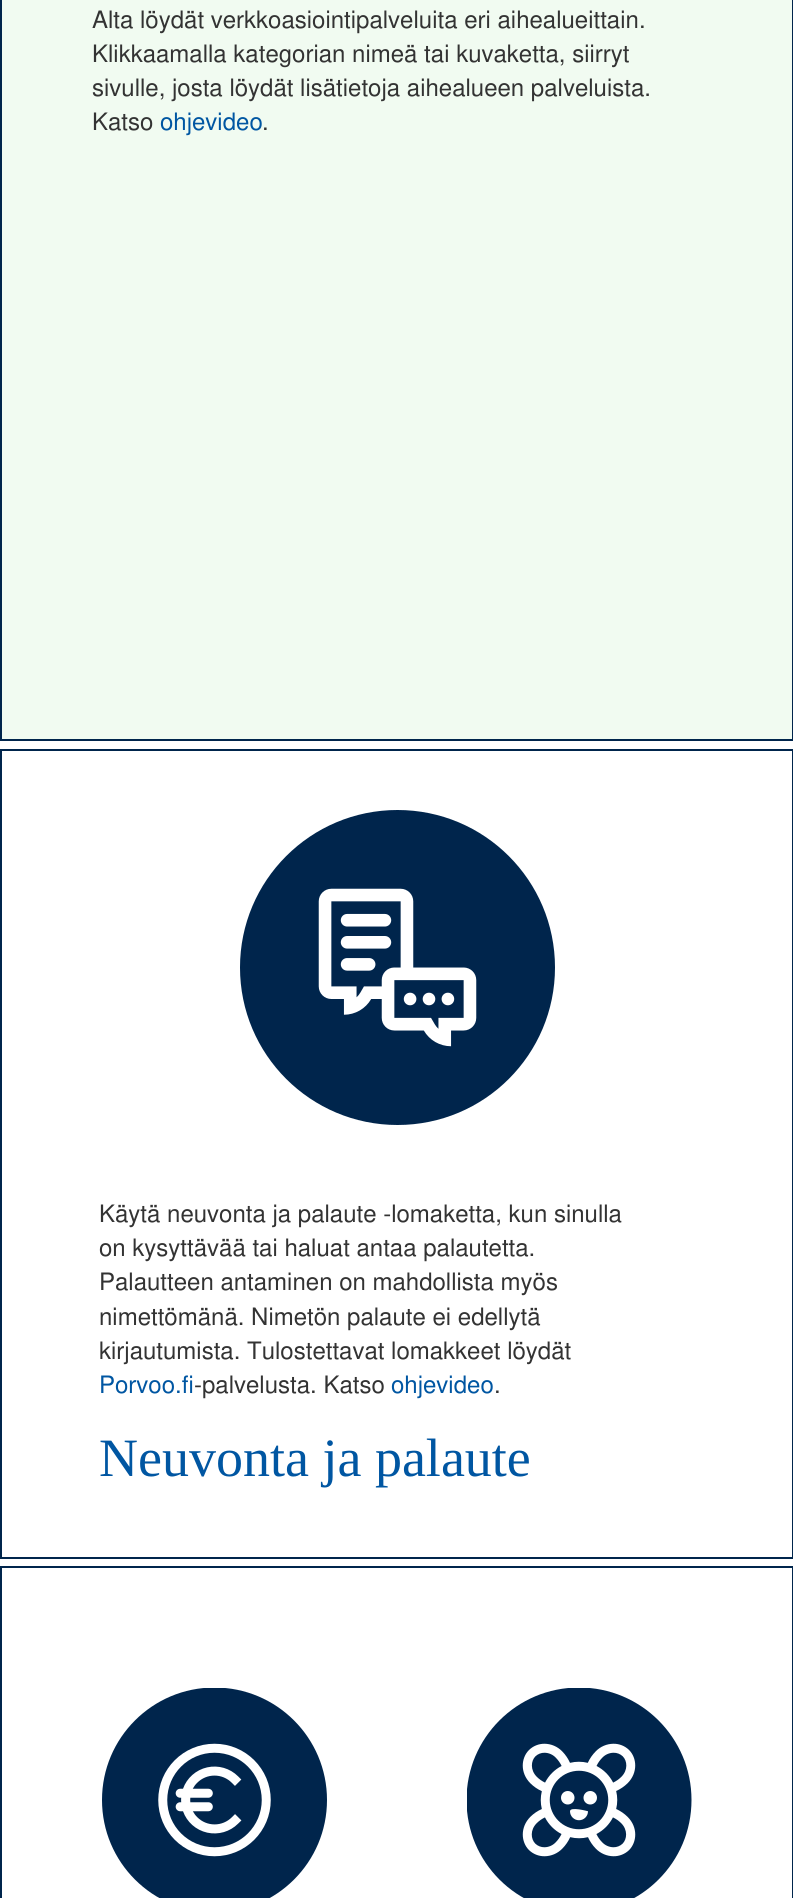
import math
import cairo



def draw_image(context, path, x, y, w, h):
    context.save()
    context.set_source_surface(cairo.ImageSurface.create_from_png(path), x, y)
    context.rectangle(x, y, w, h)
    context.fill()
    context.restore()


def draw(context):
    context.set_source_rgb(1, 1, 1)
    context.paint()
    context.set_source_rgb(241 / 255, 251 / 255, 241 / 255)
    context.rectangle(1, -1, 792, 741)
    context.fill_preserve()
    context.set_source_rgb(0, 37 / 255, 76 / 255)
    context.stroke()
    context.rectangle(1, 750, 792, 808)
    context.stroke()
    draw_image(context, "images/1.png", 240, 810, 315, 315)
    context.rectangle(1, 1567, 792, 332)
    context.stroke()
    draw_image(context, "images/2.png", 102, 1688, 225, 210)
    draw_image(context, "images/3.png", 467, 1688, 225, 210)
    context.select_font_face("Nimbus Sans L")
    context.set_font_size(24)
    context.set_source_rgb(51 / 255, 51 / 255, 51 / 255)
    context.move_to(92, 28)
    context.show_text("Alta löydät verkkoasiointipalveluita eri aihealueittain.")
    context.move_to(92, 62)
    context.show_text("Klikkaamalla kategorian nimeä tai kuvaketta, siirryt")
    context.move_to(92, 96)
    context.show_text("sivulle, josta löydät lisätietoja aihealueen palveluista.")
    context.move_to(92, 130)
    context.show_text("Katso")
    context.set_source_rgb(0, 86 / 255, 162 / 255)
    context.move_to(160, 130)
    context.show_text("ohjevideo")
    context.set_source_rgb(51 / 255, 51 / 255, 51 / 255)
    context.move_to(262, 130)
    context.show_text(".")
    context.move_to(99, 1222)
    context.show_text("Käytä neuvonta ja palaute -lomaketta, kun sinulla")
    context.move_to(99, 1256)
    context.show_text("on kysyttävää tai haluat antaa palautetta.")
    context.move_to(99, 1290)
    context.show_text("Palautteen antaminen on mahdollista myös")
    context.move_to(99, 1325)
    context.show_text("nimettömänä. Nimetön palaute ei edellytä")
    context.move_to(99, 1359)
    context.show_text("kirjautumista. Tulostettavat lomakkeet löydät")
    context.set_source_rgb(0, 86 / 255, 162 / 255)
    context.move_to(99, 1393)
    context.show_text("Porvoo.fi")
    context.set_source_rgb(51 / 255, 51 / 255, 51 / 255)
    context.move_to(194, 1393)
    context.show_text("-palvelusta. Katso")
    context.set_source_rgb(0, 86 / 255, 162 / 255)
    context.move_to(391, 1393)
    context.show_text("ohjevideo")
    context.set_source_rgb(51 / 255, 51 / 255, 51 / 255)
    context.move_to(494, 1393)
    context.show_text(".")
    context.select_font_face("Liberation Serif")
    context.set_font_size(54)
    context.set_source_rgb(0, 86 / 255, 162 / 255)
    context.move_to(99, 1476)
    context.show_text("Neuvonta ja palaute")


surface = cairo.ImageSurface(cairo.Format.RGB24, 793, 1898)
context = cairo.Context(surface)
options = cairo.FontOptions()
options.set_hint_metrics(cairo.HintMetrics.OFF)
options.set_hint_style(cairo.HintStyle.NONE)
context.set_font_options(options)
context.set_miter_limit(4)
draw(context)
surface.write_to_png("out.png")
